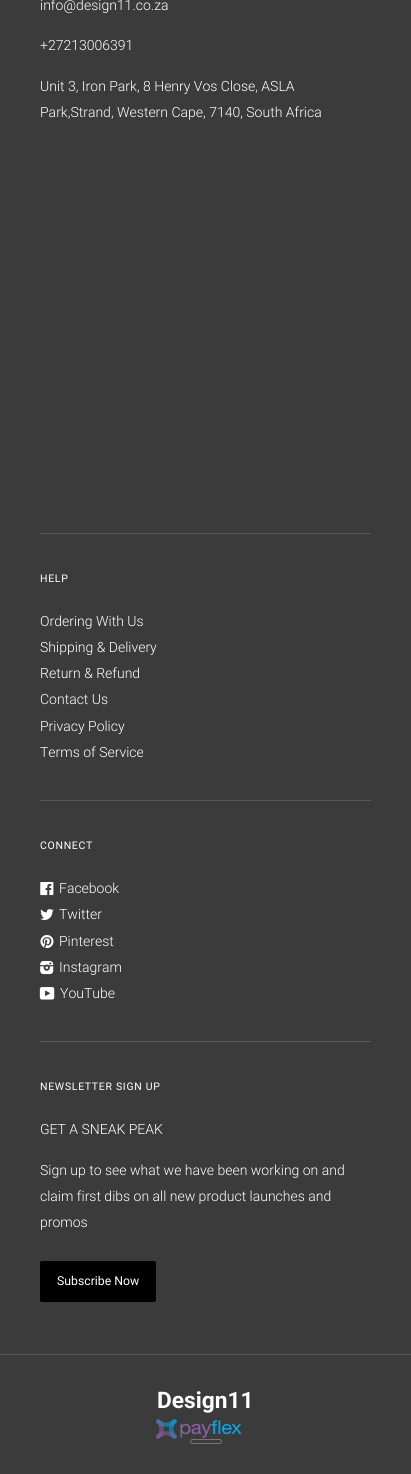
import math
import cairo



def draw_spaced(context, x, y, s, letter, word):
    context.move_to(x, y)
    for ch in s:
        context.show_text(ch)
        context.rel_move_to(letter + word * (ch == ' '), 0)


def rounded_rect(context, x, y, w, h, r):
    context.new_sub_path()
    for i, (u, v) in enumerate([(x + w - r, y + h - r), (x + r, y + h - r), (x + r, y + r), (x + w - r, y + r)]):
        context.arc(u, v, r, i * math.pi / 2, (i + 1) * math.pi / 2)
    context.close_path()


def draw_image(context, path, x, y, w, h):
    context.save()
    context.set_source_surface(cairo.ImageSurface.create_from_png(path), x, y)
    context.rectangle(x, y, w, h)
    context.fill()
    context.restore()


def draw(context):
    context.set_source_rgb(59 / 255, 59 / 255, 59 / 255)
    context.paint()
    context.set_source_rgb(88 / 255, 88 / 255, 88 / 255)
    context.rectangle(40, 533, 331, 1)
    context.fill()
    context.rectangle(40, 800, 331, 1)
    context.fill()
    draw_image(context, "images/1.png", 40, 882, 14, 14)
    draw_image(context, "images/2.png", 40, 909, 14, 11)
    draw_image(context, "images/3.png", 40, 935, 14, 14)
    draw_image(context, "images/4.png", 40, 961, 14, 14)
    draw_image(context, "images/5.png", 39, 987, 16, 13)
    context.rectangle(40, 1041, 331, 1)
    context.fill()
    context.set_source_rgb(0, 0, 0)
    rounded_rect(context, 41, 1262, 114, 39, 1)
    context.fill_preserve()
    context.stroke()
    context.set_source_rgb(88 / 255, 88 / 255, 88 / 255)
    context.rectangle(0, 1354, 411, 1)
    context.fill()
    draw_image(context, "images/6.png", 156, 1419, 86, 20)
    rounded_rect(context, 190.5, 1439.5, 31, 4, 2)
    context.set_source_rgb(118 / 255, 118 / 255, 118 / 255)
    context.set_line_width(1)
    context.stroke()
    context.select_font_face("Roboto Light")
    context.set_font_size(14)
    context.set_source_rgb(1, 1, 1)
    context.move_to(40, 10)
    context.show_text("info@design11.co.za")
    context.move_to(40, 50)
    context.show_text("+27213006391")
    context.move_to(40, 91)
    context.show_text("Unit 3, Iron Park, 8 Henry Vos Close, ASLA")
    context.move_to(40, 117)
    context.show_text("Park,Strand, Western Cape, 7140, South Africa")
    context.select_font_face("Roboto")
    context.set_font_size(10.5)
    draw_spaced(context, 40, 582, "HELP", 0.7, 0)
    context.select_font_face("Roboto Light")
    context.set_font_size(14)
    context.move_to(40, 626)
    context.show_text("Ordering With Us")
    context.move_to(40, 652)
    context.show_text("Shipping & Delivery")
    context.move_to(40, 678)
    context.show_text("Return & Refund")
    context.move_to(40, 704)
    context.show_text("Contact Us")
    context.move_to(40, 731)
    context.show_text("Privacy Policy")
    context.move_to(40, 757)
    context.show_text("Terms of Service")
    context.select_font_face("Roboto")
    context.set_font_size(10.5)
    draw_spaced(context, 40, 849, "CONNECT", 0.7, 0)
    context.select_font_face("Roboto Light")
    context.set_font_size(14)
    context.move_to(59, 893)
    context.show_text("Facebook")
    context.move_to(59, 919)
    context.show_text("Twitter")
    context.move_to(59, 946)
    context.show_text("Pinterest")
    context.move_to(59, 972)
    context.show_text("Instagram")
    context.move_to(60, 998)
    context.show_text("YouTube")
    context.select_font_face("Roboto")
    context.set_font_size(10.5)
    draw_spaced(context, 40, 1090, "NEWSLETTER SIGN UP", 0.7, 0)
    context.select_font_face("Roboto Light")
    context.set_font_size(14)
    context.move_to(40, 1134)
    context.show_text("GET A SNEAK PEAK")
    context.move_to(40, 1175)
    context.show_text("Sign up to see what we have been working on and")
    context.move_to(40, 1201)
    context.show_text("claim first dibs on all new product launches and")
    context.move_to(40, 1227)
    context.show_text("promos")
    context.select_font_face("Roboto")
    context.set_font_size(12.25)
    context.move_to(57, 1285)
    context.show_text("Subscribe Now")
    context.select_font_face("Roboto", cairo.FontSlant.NORMAL, cairo.FontWeight.BOLD)
    context.set_font_size(22.75)
    context.move_to(157, 1408)
    context.show_text("Design11")


surface = cairo.ImageSurface(cairo.Format.RGB24, 411, 1474)
context = cairo.Context(surface)
options = cairo.FontOptions()
options.set_hint_metrics(cairo.HintMetrics.OFF)
options.set_hint_style(cairo.HintStyle.NONE)
context.set_font_options(options)
context.set_miter_limit(4)
draw(context)
surface.write_to_png("out.png")
